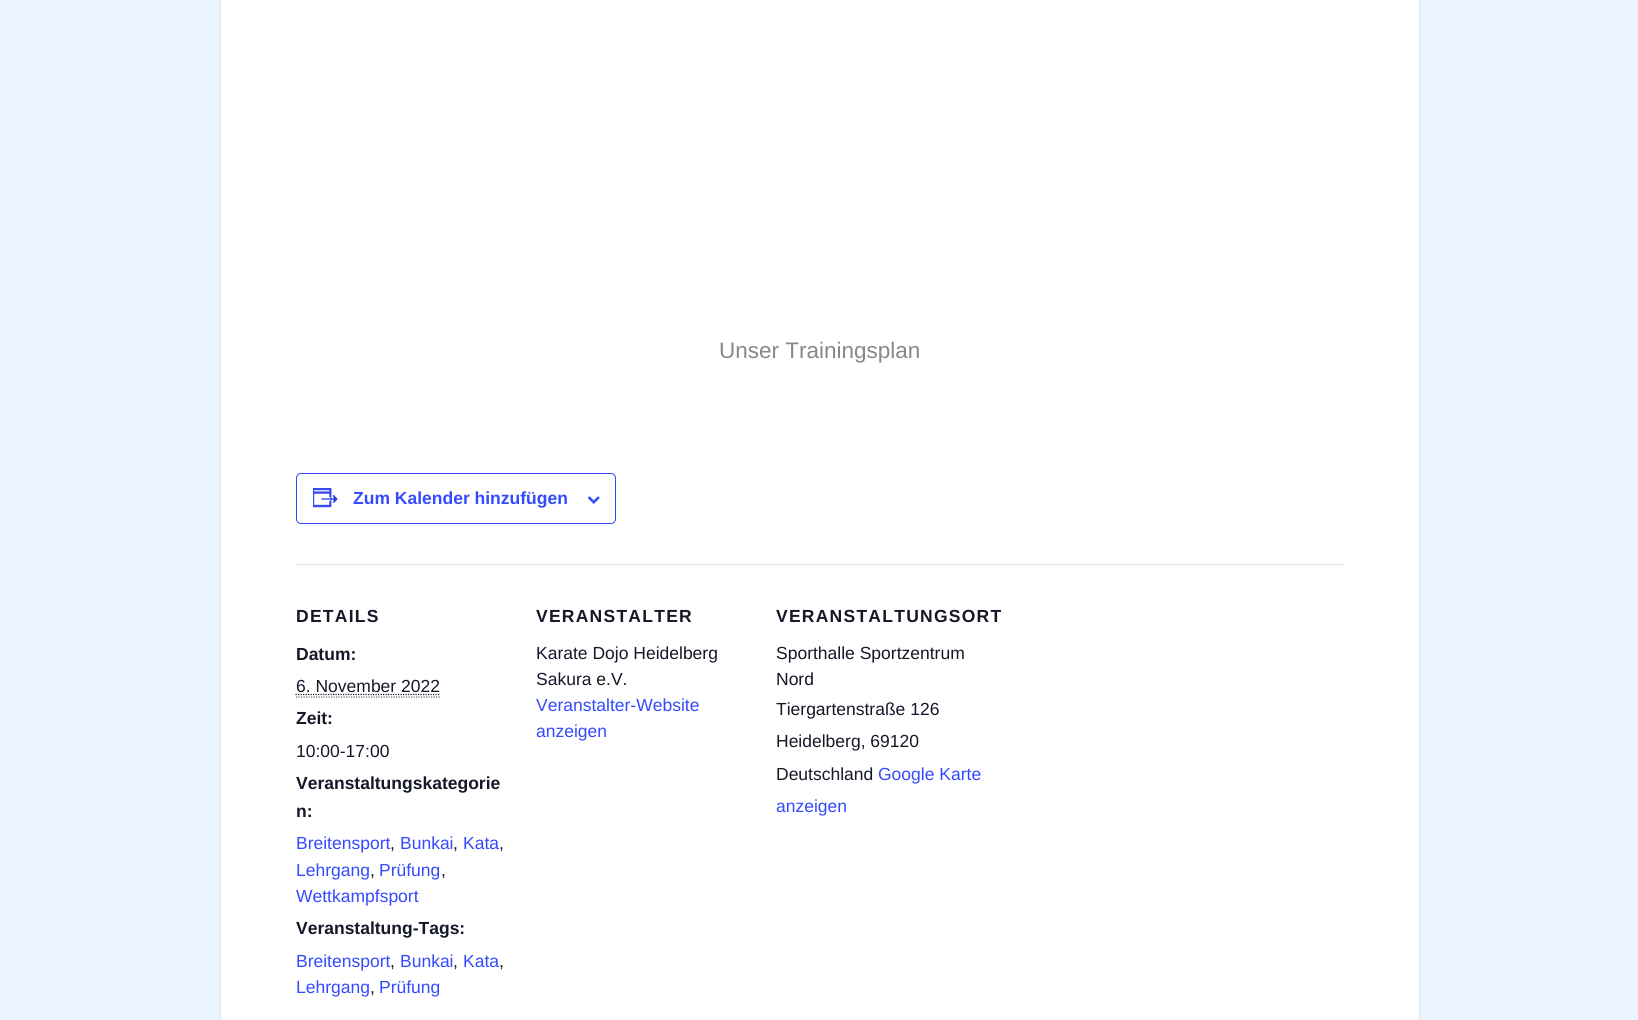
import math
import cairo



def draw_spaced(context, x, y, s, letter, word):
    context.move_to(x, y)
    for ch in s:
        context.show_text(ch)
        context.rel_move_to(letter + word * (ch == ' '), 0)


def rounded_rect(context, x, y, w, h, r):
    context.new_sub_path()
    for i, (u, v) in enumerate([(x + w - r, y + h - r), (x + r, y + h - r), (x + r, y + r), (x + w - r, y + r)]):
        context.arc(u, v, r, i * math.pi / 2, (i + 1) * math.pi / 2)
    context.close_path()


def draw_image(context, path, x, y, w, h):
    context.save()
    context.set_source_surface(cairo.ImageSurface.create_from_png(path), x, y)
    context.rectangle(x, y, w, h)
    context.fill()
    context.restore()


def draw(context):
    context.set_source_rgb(235 / 255, 245 / 255, 1)
    context.paint()
    context.set_source_rgb(1, 1, 1)
    context.rectangle(220.5, -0.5, 1199, 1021)
    context.fill_preserve()
    context.set_source_rgb(230 / 255, 230 / 255, 230 / 255)
    context.set_line_width(1)
    context.stroke()
    rounded_rect(context, 296.5, 473.5, 319, 50, 4.5)
    context.set_source_rgb(51 / 255, 74 / 255, 1)
    context.stroke()
    draw_image(context, "images/1.png", 313, 488, 25, 20)
    draw_image(context, "images/2.png", 588, 496, 12, 8)
    context.set_source_rgb(228 / 255, 228 / 255, 228 / 255)
    context.rectangle(296, 564, 1048, 1)
    context.fill()
    context.new_path()
    context.move_to(296, 697)
    context.line_to(440, 697)
    context.set_source_rgb(102 / 255, 102 / 255, 102 / 255)
    context.set_line_width(1.2)
    context.set_dash([1.25, 1.25])
    context.stroke()
    context.new_path()
    context.move_to(295.5, 694.5)
    context.line_to(439.5, 694.5)
    context.set_source_rgb(20 / 255, 24 / 255, 39 / 255)
    context.stroke()
    context.select_font_face("Liberation Sans")
    context.set_font_size(22.5)
    context.set_source_rgb(136 / 255, 136 / 255, 136 / 255)
    context.move_to(719, 358)
    context.show_text("Unser Trainingsplan")
    context.select_font_face("Liberation Sans", cairo.FontSlant.NORMAL, cairo.FontWeight.BOLD)
    context.set_font_size(17.5)
    context.set_source_rgb(51 / 255, 74 / 255, 1)
    context.move_to(353, 504)
    context.show_text("Zum Kalender hinzufügen")
    context.set_source_rgb(20 / 255, 24 / 255, 39 / 255)
    draw_spaced(context, 296, 622, "DETAILS", 1.25, 0)
    context.move_to(296, 660)
    context.show_text("Datum:")
    context.select_font_face("Liberation Sans")
    context.move_to(296, 692)
    context.show_text("6. November 2022")
    context.select_font_face("Liberation Sans", cairo.FontSlant.NORMAL, cairo.FontWeight.BOLD)
    context.move_to(296, 724)
    context.show_text("Zeit:")
    context.select_font_face("Liberation Sans")
    context.move_to(296, 757)
    context.show_text("10:00-17:00")
    context.select_font_face("Liberation Sans", cairo.FontSlant.NORMAL, cairo.FontWeight.BOLD)
    context.move_to(296, 789)
    context.show_text("Veranstaltungskategorie")
    context.move_to(296, 817)
    context.show_text("n:")
    context.select_font_face("Liberation Sans")
    context.set_source_rgb(51 / 255, 74 / 255, 1)
    context.move_to(296, 849)
    context.show_text("Breitensport")
    context.set_source_rgb(20 / 255, 24 / 255, 39 / 255)
    context.move_to(390, 849)
    context.show_text(",")
    context.set_source_rgb(51 / 255, 74 / 255, 1)
    context.move_to(400, 849)
    context.show_text("Bunkai")
    context.set_source_rgb(20 / 255, 24 / 255, 39 / 255)
    context.move_to(453, 849)
    context.show_text(",")
    context.set_source_rgb(51 / 255, 74 / 255, 1)
    context.move_to(463, 849)
    context.show_text("Kata")
    context.set_source_rgb(20 / 255, 24 / 255, 39 / 255)
    context.move_to(499, 849)
    context.show_text(",")
    context.set_source_rgb(51 / 255, 74 / 255, 1)
    context.move_to(296, 876)
    context.show_text("Lehrgang")
    context.set_source_rgb(20 / 255, 24 / 255, 39 / 255)
    context.move_to(370, 876)
    context.show_text(",")
    context.set_source_rgb(51 / 255, 74 / 255, 1)
    context.move_to(379, 876)
    context.show_text("Prüfung")
    context.set_source_rgb(20 / 255, 24 / 255, 39 / 255)
    context.move_to(441, 876)
    context.show_text(",")
    context.set_source_rgb(51 / 255, 74 / 255, 1)
    context.move_to(296, 902)
    context.show_text("Wettkampfsport")
    context.select_font_face("Liberation Sans", cairo.FontSlant.NORMAL, cairo.FontWeight.BOLD)
    context.set_source_rgb(20 / 255, 24 / 255, 39 / 255)
    context.move_to(296, 934)
    context.show_text("Veranstaltung-Tags:")
    context.select_font_face("Liberation Sans")
    context.set_source_rgb(51 / 255, 74 / 255, 1)
    context.move_to(296, 967)
    context.show_text("Breitensport")
    context.set_source_rgb(20 / 255, 24 / 255, 39 / 255)
    context.move_to(390, 967)
    context.show_text(",")
    context.set_source_rgb(51 / 255, 74 / 255, 1)
    context.move_to(400, 967)
    context.show_text("Bunkai")
    context.set_source_rgb(20 / 255, 24 / 255, 39 / 255)
    context.move_to(453, 967)
    context.show_text(",")
    context.set_source_rgb(51 / 255, 74 / 255, 1)
    context.move_to(463, 967)
    context.show_text("Kata")
    context.set_source_rgb(20 / 255, 24 / 255, 39 / 255)
    context.move_to(499, 967)
    context.show_text(",")
    context.set_source_rgb(51 / 255, 74 / 255, 1)
    context.move_to(296, 993)
    context.show_text("Lehrgang")
    context.set_source_rgb(20 / 255, 24 / 255, 39 / 255)
    context.move_to(370, 993)
    context.show_text(",")
    context.set_source_rgb(51 / 255, 74 / 255, 1)
    context.move_to(379, 993)
    context.show_text("Prüfung")
    context.select_font_face("Liberation Sans", cairo.FontSlant.NORMAL, cairo.FontWeight.BOLD)
    context.set_source_rgb(20 / 255, 24 / 255, 39 / 255)
    draw_spaced(context, 536, 622, "VERANSTALTER", 1.25, 0)
    context.select_font_face("Liberation Sans")
    context.move_to(536, 659)
    context.show_text("Karate Dojo Heidelberg")
    context.move_to(536, 685)
    context.show_text("Sakura e.V.")
    context.set_source_rgb(51 / 255, 74 / 255, 1)
    context.move_to(536, 711)
    context.show_text("Veranstalter-Website")
    context.move_to(536, 737)
    context.show_text("anzeigen")
    context.select_font_face("Liberation Sans", cairo.FontSlant.NORMAL, cairo.FontWeight.BOLD)
    context.set_source_rgb(20 / 255, 24 / 255, 39 / 255)
    draw_spaced(context, 776, 622, "VERANSTALTUNGSORT", 1.25, 0)
    context.select_font_face("Liberation Sans")
    context.move_to(776, 659)
    context.show_text("Sporthalle Sportzentrum")
    context.move_to(776, 685)
    context.show_text("Nord")
    context.move_to(776, 715)
    context.show_text("Tiergartenstraße 126")
    context.move_to(776, 747)
    context.show_text("Heidelberg, 69120")
    context.move_to(776, 780)
    context.show_text("Deutschland")
    context.set_source_rgb(51 / 255, 74 / 255, 1)
    context.move_to(878, 780)
    context.show_text("Google Karte")
    context.move_to(776, 812)
    context.show_text("anzeigen")


surface = cairo.ImageSurface(cairo.Format.RGB24, 1638, 1020)
context = cairo.Context(surface)
options = cairo.FontOptions()
options.set_hint_metrics(cairo.HintMetrics.OFF)
options.set_hint_style(cairo.HintStyle.NONE)
context.set_font_options(options)
context.set_miter_limit(4)
draw(context)
surface.write_to_png("out.png")
